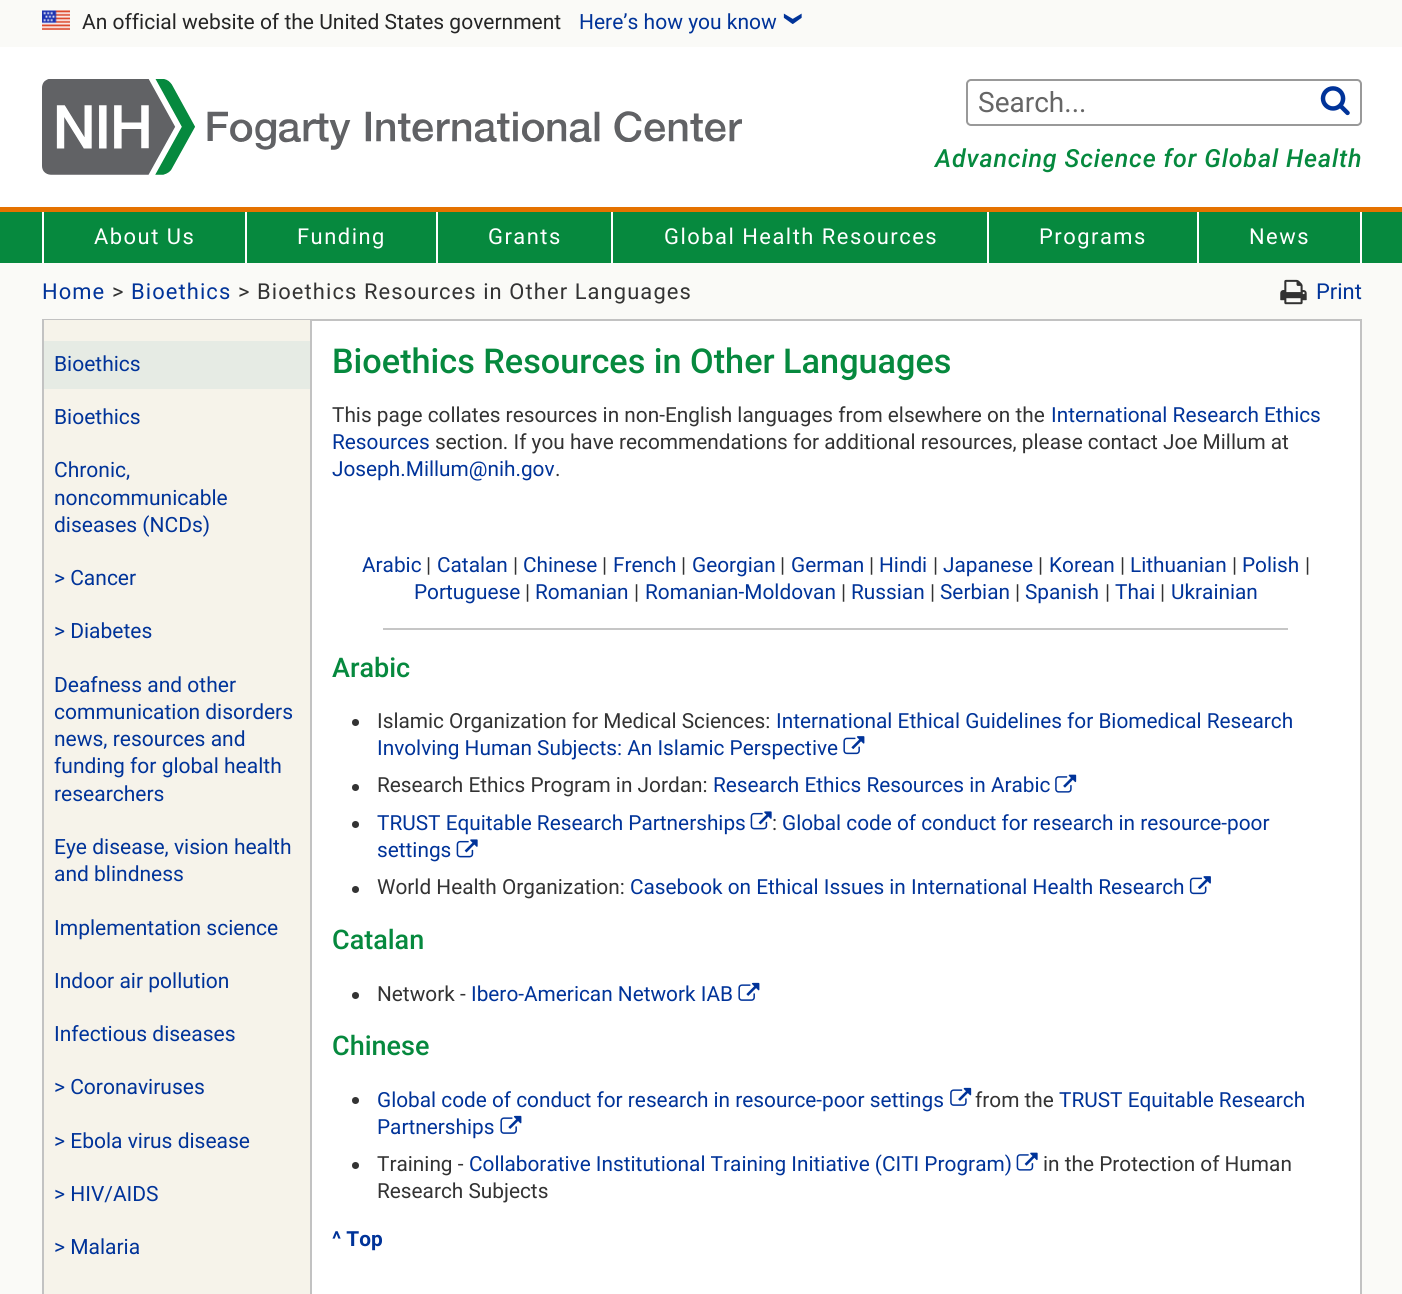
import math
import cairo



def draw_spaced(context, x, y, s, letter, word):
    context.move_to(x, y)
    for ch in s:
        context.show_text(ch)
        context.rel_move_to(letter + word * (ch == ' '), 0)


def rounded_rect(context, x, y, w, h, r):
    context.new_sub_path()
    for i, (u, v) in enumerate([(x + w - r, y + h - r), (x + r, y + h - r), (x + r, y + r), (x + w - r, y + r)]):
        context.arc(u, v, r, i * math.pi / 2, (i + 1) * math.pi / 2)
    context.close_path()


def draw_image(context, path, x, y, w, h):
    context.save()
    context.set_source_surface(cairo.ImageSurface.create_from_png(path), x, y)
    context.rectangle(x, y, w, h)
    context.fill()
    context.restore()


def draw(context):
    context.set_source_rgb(250 / 255, 250 / 255, 247 / 255)
    context.paint()
    draw_image(context, "images/1.png", 42, 10, 28, 20)
    draw_image(context, "images/2.png", 783, 13, 19, 11)
    context.set_source_rgb(1, 1, 1)
    context.rectangle(0, 47, 1402, 160)
    context.fill()
    draw_image(context, "images/3.png", 42, 79, 700, 96)
    rounded_rect(context, 967, 80, 394, 45, 4)
    context.set_source_rgb(153 / 255, 153 / 255, 153 / 255)
    context.stroke()
    draw_image(context, "images/4.png", 1320, 86, 30, 30)
    context.set_source_rgb(6 / 255, 137 / 255, 62 / 255)
    context.rectangle(0, 212, 1402, 51)
    context.fill()
    context.set_source_rgb(229 / 255, 114 / 255, 0)
    context.rectangle(0, 207, 1402, 5)
    context.fill()
    context.set_source_rgb(1, 1, 1)
    context.rectangle(245, 212, 2, 51)
    context.fill()
    context.rectangle(42, 212, 2, 51)
    context.fill()
    context.rectangle(436, 212, 2, 51)
    context.fill()
    context.rectangle(611, 212, 2, 51)
    context.fill()
    context.rectangle(987, 212, 2, 51)
    context.fill()
    context.rectangle(1197, 212, 2, 51)
    context.fill()
    context.rectangle(1360, 212, 2, 51)
    context.fill()
    draw_image(context, "images/5.png", 1280, 279, 27, 26)
    context.rectangle(312, 321, 1048, 973)
    context.fill()
    context.rectangle(43, 320, 1318, 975)
    context.set_source_rgb(194 / 255, 194 / 255, 194 / 255)
    context.stroke()
    context.set_source_rgb(246 / 255, 243 / 255, 234 / 255)
    context.rectangle(44, 320, 266, 974)
    context.fill()
    context.set_source_rgb(194 / 255, 194 / 255, 194 / 255)
    context.rectangle(310, 320, 2, 974)
    context.fill()
    context.set_source_rgb(230 / 255, 235 / 255, 228 / 255)
    context.rectangle(44, 341, 266, 48)
    context.fill()
    context.set_source_rgb(198 / 255, 198 / 255, 198 / 255)
    context.rectangle(383, 628, 905, 2)
    context.fill()
    context.set_source_rgb(51 / 255, 51 / 255, 51 / 255)
    context.arc(355.5, 722.5, 3.5, 0, 2 * math.pi)
    context.fill()
    draw_image(context, "images/6.png", 843, 736, 22, 19)
    context.arc(355.5, 787.5, 3.5, 0, 2 * math.pi)
    context.fill()
    draw_image(context, "images/7.png", 1055, 774, 22, 19)
    context.arc(355.5, 824.5, 3.5, 0, 2 * math.pi)
    context.fill()
    draw_image(context, "images/8.png", 750, 811, 22, 19)
    draw_image(context, "images/8.png", 456, 839, 22, 19)
    context.arc(355.5, 889.5, 3.5, 0, 2 * math.pi)
    context.fill()
    draw_image(context, "images/9.png", 1189, 876, 22, 19)
    context.arc(355.5, 995.5, 3.5, 0, 2 * math.pi)
    context.fill()
    draw_image(context, "images/10.png", 738, 982, 22, 19)
    context.arc(355.5, 1100.5, 3.5, 0, 2 * math.pi)
    context.fill()
    draw_image(context, "images/11.png", 950, 1087, 22, 19)
    draw_image(context, "images/10.png", 500, 1115, 22, 19)
    context.arc(355.5, 1165.5, 3.5, 0, 2 * math.pi)
    context.fill()
    draw_image(context, "images/12.png", 1016, 1152, 22, 19)
    context.select_font_face("Roboto")
    context.set_font_size(21)
    context.set_source_rgb(37 / 255, 37 / 255, 37 / 255)
    context.move_to(82, 29)
    context.show_text("An official website of the United States government")
    context.set_source_rgb(0, 51 / 255, 153 / 255)
    context.move_to(579, 29)
    context.show_text("Here’s how you know")
    context.set_font_size(28)
    context.set_source_rgb(102 / 255, 102 / 255, 102 / 255)
    context.move_to(978, 112)
    context.show_text("Search...")
    context.select_font_face("Roboto Medium", cairo.FontSlant.ITALIC)
    context.set_font_size(25)
    context.set_source_rgb(6 / 255, 137 / 255, 62 / 255)
    draw_spaced(context, 935, 167, "Advancing Science for Global Health", 0.9, 0)
    context.select_font_face("Roboto")
    context.set_font_size(21.9)
    context.set_source_rgb(1, 1, 1)
    draw_spaced(context, 94, 244, "About Us", 1.5, 0)
    draw_spaced(context, 297, 244, "Funding", 1.5, 0)
    draw_spaced(context, 488, 244, "Grants", 1.5, 0)
    draw_spaced(context, 664, 244, "Global Health Resources", 1.5, 0)
    draw_spaced(context, 1039, 244, "Programs", 1.5, 0)
    draw_spaced(context, 1249, 244, "News", 1.5, 0)
    context.set_source_rgb(0, 51 / 255, 153 / 255)
    draw_spaced(context, 42, 299, "Home", 1.1, 0)
    context.set_source_rgb(51 / 255, 51 / 255, 51 / 255)
    draw_spaced(context, 112, 299, ">", 1.1, 0)
    context.set_source_rgb(0, 51 / 255, 153 / 255)
    draw_spaced(context, 131, 299, "Bioethics", 1.1, 0)
    context.set_source_rgb(51 / 255, 51 / 255, 51 / 255)
    draw_spaced(context, 238, 299, "> Bioethics Resources in Other Languages", 1.1, 0)
    context.set_source_rgb(0, 51 / 255, 153 / 255)
    context.move_to(1316, 299)
    context.show_text("Print")
    context.set_font_size(21)
    context.move_to(54, 371)
    context.show_text("Bioethics")
    context.move_to(54, 424)
    context.show_text("Bioethics")
    context.move_to(54, 477)
    context.show_text("Chronic,")
    context.move_to(54, 505)
    context.show_text("noncommunicable")
    context.move_to(54, 532)
    context.show_text("diseases (NCDs)")
    context.move_to(54, 585)
    context.show_text("> Cancer")
    context.move_to(54, 638)
    context.show_text("> Diabetes")
    context.move_to(54, 692)
    context.show_text("Deafness and other")
    context.move_to(54, 719)
    context.show_text("communication disorders")
    context.move_to(54, 746)
    context.show_text("news, resources and")
    context.move_to(54, 773)
    context.show_text("funding for global health")
    context.move_to(54, 801)
    context.show_text("researchers")
    context.move_to(54, 854)
    context.show_text("Eye disease, vision health")
    context.move_to(54, 881)
    context.show_text("and blindness")
    context.move_to(54, 935)
    context.show_text("Implementation science")
    context.move_to(54, 988)
    context.show_text("Indoor air pollution")
    context.move_to(54, 1041)
    context.show_text("Infectious diseases")
    context.move_to(54, 1094)
    context.show_text("> Coronaviruses")
    context.move_to(54, 1148)
    context.show_text("> Ebola virus disease")
    context.move_to(54, 1201)
    context.show_text("> HIV/AIDS")
    context.move_to(54, 1254)
    context.show_text("> Malaria")
    context.select_font_face("Roboto Medium")
    context.set_font_size(34.25)
    context.set_source_rgb(6 / 255, 137 / 255, 62 / 255)
    context.move_to(332, 373)
    context.show_text("Bioethics Resources in Other Languages")
    context.select_font_face("Roboto")
    context.set_font_size(20.8)
    context.set_source_rgb(51 / 255, 51 / 255, 51 / 255)
    context.move_to(332, 422)
    context.show_text("This page collates resources in non-English languages from elsewhere on the")
    context.set_source_rgb(0, 51 / 255, 153 / 255)
    context.move_to(1051, 422)
    context.show_text("International Research Ethics")
    context.move_to(332, 449)
    context.show_text("Resources")
    context.set_source_rgb(51 / 255, 51 / 255, 51 / 255)
    context.move_to(435, 449)
    context.show_text("section. If you have recommendations for additional resources, please contact Joe Millum at")
    context.set_source_rgb(0, 51 / 255, 153 / 255)
    context.move_to(332, 476)
    context.show_text("Joseph.Millum@nih.gov")
    context.set_source_rgb(51 / 255, 51 / 255, 51 / 255)
    context.move_to(555, 476)
    context.show_text(".")
    context.set_source_rgb(0, 51 / 255, 153 / 255)
    context.move_to(362, 572)
    context.show_text("Arabic")
    context.set_source_rgb(51 / 255, 51 / 255, 51 / 255)
    context.move_to(426, 572)
    context.show_text("|")
    context.set_source_rgb(0, 51 / 255, 153 / 255)
    context.move_to(437, 572)
    context.show_text("Catalan")
    context.set_source_rgb(51 / 255, 51 / 255, 51 / 255)
    context.move_to(513, 572)
    context.show_text("|")
    context.set_source_rgb(0, 51 / 255, 153 / 255)
    context.move_to(523, 572)
    context.show_text("Chinese")
    context.set_source_rgb(51 / 255, 51 / 255, 51 / 255)
    context.move_to(602, 572)
    context.show_text("|")
    context.set_source_rgb(0, 51 / 255, 153 / 255)
    context.move_to(613, 572)
    context.show_text("French")
    context.set_source_rgb(51 / 255, 51 / 255, 51 / 255)
    context.move_to(681, 572)
    context.show_text("|")
    context.set_source_rgb(0, 51 / 255, 153 / 255)
    context.move_to(692, 572)
    context.show_text("Georgian")
    context.set_source_rgb(51 / 255, 51 / 255, 51 / 255)
    context.move_to(780, 572)
    context.show_text("|")
    context.set_source_rgb(0, 51 / 255, 153 / 255)
    context.move_to(791, 572)
    context.show_text("German")
    context.set_source_rgb(51 / 255, 51 / 255, 51 / 255)
    context.move_to(869, 572)
    context.show_text("|")
    context.set_source_rgb(0, 51 / 255, 153 / 255)
    context.move_to(879, 572)
    context.show_text("Hindi")
    context.set_source_rgb(51 / 255, 51 / 255, 51 / 255)
    context.move_to(933, 572)
    context.show_text("|")
    context.set_source_rgb(0, 51 / 255, 153 / 255)
    context.move_to(943, 572)
    context.show_text("Japanese")
    context.set_source_rgb(51 / 255, 51 / 255, 51 / 255)
    context.move_to(1038, 572)
    context.show_text("|")
    context.set_source_rgb(0, 51 / 255, 153 / 255)
    context.move_to(1049, 572)
    context.show_text("Korean")
    context.set_source_rgb(51 / 255, 51 / 255, 51 / 255)
    context.move_to(1120, 572)
    context.show_text("|")
    context.set_source_rgb(0, 51 / 255, 153 / 255)
    context.move_to(1130, 572)
    context.show_text("Lithuanian")
    context.set_source_rgb(51 / 255, 51 / 255, 51 / 255)
    context.move_to(1232, 572)
    context.show_text("|")
    context.set_source_rgb(0, 51 / 255, 153 / 255)
    context.move_to(1242, 572)
    context.show_text("Polish")
    context.set_source_rgb(51 / 255, 51 / 255, 51 / 255)
    context.move_to(1305, 572)
    context.show_text("|")
    context.set_source_rgb(0, 51 / 255, 153 / 255)
    context.move_to(414, 599)
    context.show_text("Portuguese")
    context.set_source_rgb(51 / 255, 51 / 255, 51 / 255)
    context.move_to(525, 599)
    context.show_text("|")
    context.set_source_rgb(0, 51 / 255, 153 / 255)
    context.move_to(535, 599)
    context.show_text("Romanian")
    context.set_source_rgb(51 / 255, 51 / 255, 51 / 255)
    context.move_to(634, 599)
    context.show_text("|")
    context.set_source_rgb(0, 51 / 255, 153 / 255)
    context.move_to(645, 599)
    context.show_text("Romanian-Moldovan")
    context.set_source_rgb(51 / 255, 51 / 255, 51 / 255)
    context.move_to(841, 599)
    context.show_text("|")
    context.set_source_rgb(0, 51 / 255, 153 / 255)
    context.move_to(851, 599)
    context.show_text("Russian")
    context.set_source_rgb(51 / 255, 51 / 255, 51 / 255)
    context.move_to(930, 599)
    context.show_text("|")
    context.set_source_rgb(0, 51 / 255, 153 / 255)
    context.move_to(940, 599)
    context.show_text("Serbian")
    context.set_source_rgb(51 / 255, 51 / 255, 51 / 255)
    context.move_to(1015, 599)
    context.show_text("|")
    context.set_source_rgb(0, 51 / 255, 153 / 255)
    context.move_to(1025, 599)
    context.show_text("Spanish")
    context.set_source_rgb(51 / 255, 51 / 255, 51 / 255)
    context.move_to(1105, 599)
    context.show_text("|")
    context.set_source_rgb(0, 51 / 255, 153 / 255)
    context.move_to(1115, 599)
    context.show_text("Thai")
    context.set_source_rgb(51 / 255, 51 / 255, 51 / 255)
    context.move_to(1160, 599)
    context.show_text("|")
    context.set_source_rgb(0, 51 / 255, 153 / 255)
    context.move_to(1171, 599)
    context.show_text("Ukrainian")
    context.select_font_face("Roboto Medium")
    context.set_font_size(27)
    context.set_source_rgb(6 / 255, 137 / 255, 62 / 255)
    context.move_to(332, 677)
    context.show_text("Arabic")
    context.select_font_face("Roboto")
    context.set_font_size(20.8)
    context.set_source_rgb(51 / 255, 51 / 255, 51 / 255)
    context.move_to(377, 728)
    context.show_text("Islamic Organization for Medical Sciences:")
    context.set_source_rgb(0, 51 / 255, 153 / 255)
    context.move_to(776, 728)
    context.show_text("International Ethical Guidelines for Biomedical Research")
    context.move_to(377, 755)
    context.show_text("Involving Human Subjects: An Islamic Perspective")
    context.set_source_rgb(51 / 255, 51 / 255, 51 / 255)
    context.move_to(377, 792)
    context.show_text("Research Ethics Program in Jordan:")
    context.set_source_rgb(0, 51 / 255, 153 / 255)
    context.move_to(713, 792)
    context.show_text("Research Ethics Resources in Arabic")
    context.move_to(377, 830)
    context.show_text("TRUST Equitable Research Partnerships")
    context.set_source_rgb(51 / 255, 51 / 255, 51 / 255)
    context.move_to(772, 830)
    context.show_text(":")
    context.set_source_rgb(0, 51 / 255, 153 / 255)
    context.move_to(782, 830)
    context.show_text("Global code of conduct for research in resource-poor")
    context.move_to(377, 857)
    context.show_text("settings")
    context.set_source_rgb(51 / 255, 51 / 255, 51 / 255)
    context.move_to(377, 894)
    context.show_text("World Health Organization:")
    context.set_source_rgb(0, 51 / 255, 153 / 255)
    context.move_to(630, 894)
    context.show_text("Casebook on Ethical Issues in International Health Research")
    context.select_font_face("Roboto Medium")
    context.set_font_size(27)
    context.set_source_rgb(6 / 255, 137 / 255, 62 / 255)
    context.move_to(332, 949)
    context.show_text("Catalan")
    context.select_font_face("Roboto")
    context.set_font_size(20.8)
    context.set_source_rgb(51 / 255, 51 / 255, 51 / 255)
    context.move_to(377, 1001)
    context.show_text("Network -")
    context.set_source_rgb(0, 51 / 255, 153 / 255)
    context.move_to(471, 1001)
    context.show_text("Ibero-American Network IAB")
    context.select_font_face("Roboto Medium")
    context.set_font_size(27)
    context.set_source_rgb(6 / 255, 137 / 255, 62 / 255)
    context.move_to(332, 1055)
    context.show_text("Chinese")
    context.select_font_face("Roboto")
    context.set_font_size(20.8)
    context.set_source_rgb(0, 51 / 255, 153 / 255)
    context.move_to(377, 1107)
    context.show_text("Global code of conduct for research in resource-poor settings")
    context.set_source_rgb(51 / 255, 51 / 255, 51 / 255)
    context.move_to(975, 1107)
    context.show_text("from the")
    context.set_source_rgb(0, 51 / 255, 153 / 255)
    context.move_to(1059, 1107)
    context.show_text("TRUST Equitable Research")
    context.move_to(377, 1134)
    context.show_text("Partnerships")
    context.set_source_rgb(51 / 255, 51 / 255, 51 / 255)
    context.move_to(377, 1171)
    context.show_text("Training -")
    context.set_source_rgb(0, 51 / 255, 153 / 255)
    context.move_to(469, 1171)
    context.show_text("Collaborative Institutional Training Initiative (CITI Program)")
    context.set_source_rgb(51 / 255, 51 / 255, 51 / 255)
    context.move_to(1043, 1171)
    context.show_text("in the Protection of Human")
    context.move_to(377, 1198)
    context.show_text("Research Subjects")
    context.select_font_face("Roboto", cairo.FontSlant.NORMAL, cairo.FontWeight.BOLD)
    context.set_source_rgb(0, 51 / 255, 153 / 255)
    context.move_to(332, 1246)
    context.show_text("^ Top")


surface = cairo.ImageSurface(cairo.Format.RGB24, 1402, 1294)
context = cairo.Context(surface)
options = cairo.FontOptions()
options.set_hint_metrics(cairo.HintMetrics.OFF)
options.set_hint_style(cairo.HintStyle.NONE)
context.set_font_options(options)
context.set_miter_limit(4)
draw(context)
surface.write_to_png("out.png")
